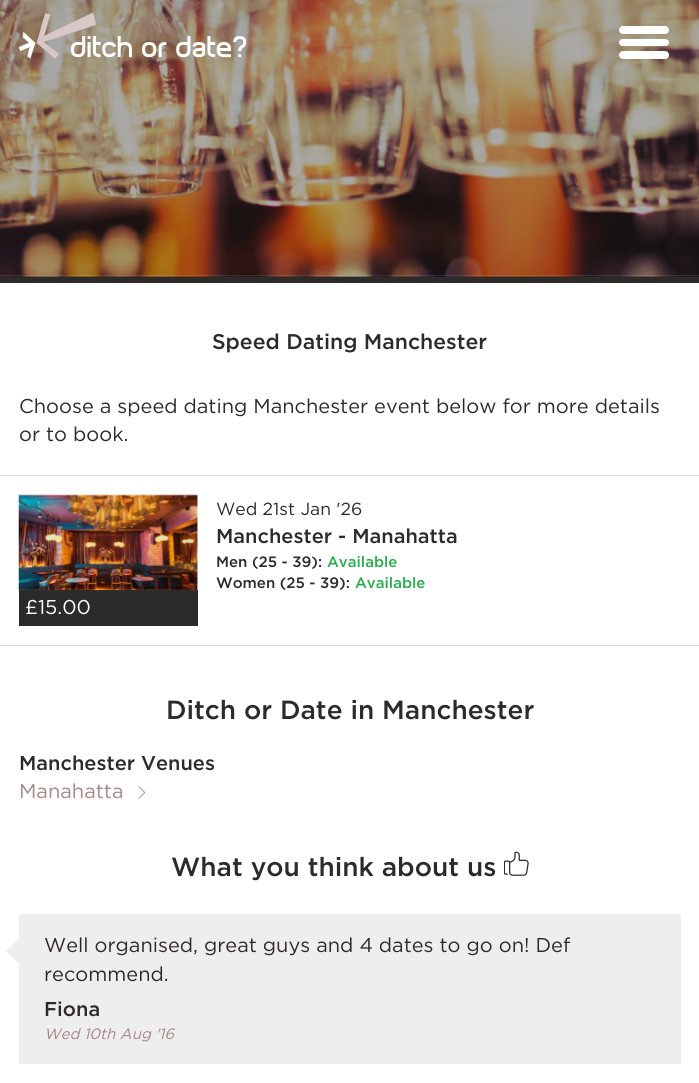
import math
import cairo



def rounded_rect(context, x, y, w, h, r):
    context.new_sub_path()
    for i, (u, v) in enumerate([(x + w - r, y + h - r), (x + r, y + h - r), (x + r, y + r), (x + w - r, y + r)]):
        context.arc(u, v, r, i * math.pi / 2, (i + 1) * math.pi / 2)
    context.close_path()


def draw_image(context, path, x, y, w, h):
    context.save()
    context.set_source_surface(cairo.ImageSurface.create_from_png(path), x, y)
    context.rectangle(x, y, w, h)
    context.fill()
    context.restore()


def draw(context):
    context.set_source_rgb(1, 1, 1)
    context.paint()
    context.set_source_rgb(45 / 255, 43 / 255, 42 / 255)
    context.rectangle(0, 276, 699, 7)
    context.fill()
    draw_image(context, "images/1.png", 0, 0, 699, 277)
    draw_image(context, "images/2.png", 19, 13, 227, 46)
    context.set_source_rgb(1, 1, 1)
    rounded_rect(context, 619, 26, 50, 8, 4)
    context.fill()
    rounded_rect(context, 619, 39, 50, 7, 3.5)
    context.fill()
    rounded_rect(context, 619, 51, 50, 8, 4)
    context.fill()
    context.set_source_rgb(227 / 255, 216 / 255, 216 / 255)
    context.rectangle(0, 475, 699, 1)
    context.fill()
    context.rectangle(0, 645, 699, 1)
    context.fill()
    context.set_source_rgb(45 / 255, 43 / 255, 42 / 255)
    context.rectangle(19, 590, 179, 36)
    context.fill()
    draw_image(context, "images/3.png", 18, 494, 180, 97)
    draw_image(context, "images/4.png", 138, 786, 8, 13)
    draw_image(context, "images/5.png", 504, 851, 25, 25)
    context.set_source_rgb(238 / 255, 238 / 255, 238 / 255)
    context.rectangle(19, 914, 662, 150)
    context.fill()
    context.new_path()
    context.move_to(19, 939)
    context.line_to(19, 964)
    context.line_to(6, 951)
    context.close_path()
    context.fill()
    context.select_font_face("Gotham Medium")
    context.set_font_size(21.25)
    context.set_source_rgb(45 / 255, 43 / 255, 42 / 255)
    context.move_to(212, 349)
    context.show_text("Speed Dating Manchester")
    context.select_font_face("Gotham")
    context.set_font_size(20)
    context.move_to(19, 413)
    context.show_text("Choose a speed dating Manchester event below for more details")
    context.move_to(19, 441)
    context.show_text("or to book.")
    context.set_font_size(17.5)
    context.move_to(216, 515)
    context.show_text("Wed 21st Jan '26")
    context.select_font_face("Gotham Medium")
    context.set_font_size(20)
    context.move_to(216, 543)
    context.show_text("Manchester - Manahatta")
    context.set_font_size(15)
    context.move_to(216, 567)
    context.show_text("Men (25 - 39):")
    context.set_source_rgb(38 / 255, 172 / 255, 76 / 255)
    context.move_to(327, 567)
    context.show_text("Available")
    context.set_source_rgb(45 / 255, 43 / 255, 42 / 255)
    context.move_to(216, 588)
    context.show_text("Women (25 - 39):")
    context.set_source_rgb(38 / 255, 172 / 255, 76 / 255)
    context.move_to(355, 588)
    context.show_text("Available")
    context.select_font_face("Gotham")
    context.set_font_size(20)
    context.set_source_rgb(1, 1, 1)
    context.move_to(25, 614)
    context.show_text("£15.00")
    context.select_font_face("Gotham Medium")
    context.set_font_size(26.25)
    context.set_source_rgb(45 / 255, 43 / 255, 42 / 255)
    context.move_to(166, 719)
    context.show_text("Ditch or Date in Manchester")
    context.set_font_size(20)
    context.move_to(19, 770)
    context.show_text("Manchester Venues")
    context.select_font_face("Gotham")
    context.set_source_rgb(167 / 255, 134 / 255, 134 / 255)
    context.move_to(19, 798)
    context.show_text("Manahatta")
    context.select_font_face("Gotham Medium")
    context.set_font_size(26.25)
    context.set_source_rgb(45 / 255, 43 / 255, 42 / 255)
    context.move_to(171, 876)
    context.show_text("What you think about us")
    context.select_font_face("Gotham")
    context.set_font_size(20)
    context.move_to(44, 952)
    context.show_text("Well organised, great guys and 4 dates to go on! Def")
    context.move_to(44, 981)
    context.show_text("recommend.")
    context.select_font_face("Gotham Medium")
    context.move_to(44, 1016)
    context.show_text("Fiona")
    context.select_font_face("Gotham", cairo.FontSlant.ITALIC)
    context.set_font_size(15)
    context.set_source_rgb(167 / 255, 134 / 255, 134 / 255)
    context.move_to(44, 1039)
    context.show_text("Wed 10th Aug '16")


surface = cairo.ImageSurface(cairo.Format.RGB24, 699, 1083)
context = cairo.Context(surface)
options = cairo.FontOptions()
options.set_hint_metrics(cairo.HintMetrics.OFF)
options.set_hint_style(cairo.HintStyle.NONE)
context.set_font_options(options)
context.set_miter_limit(4)
draw(context)
surface.write_to_png("out.png")
